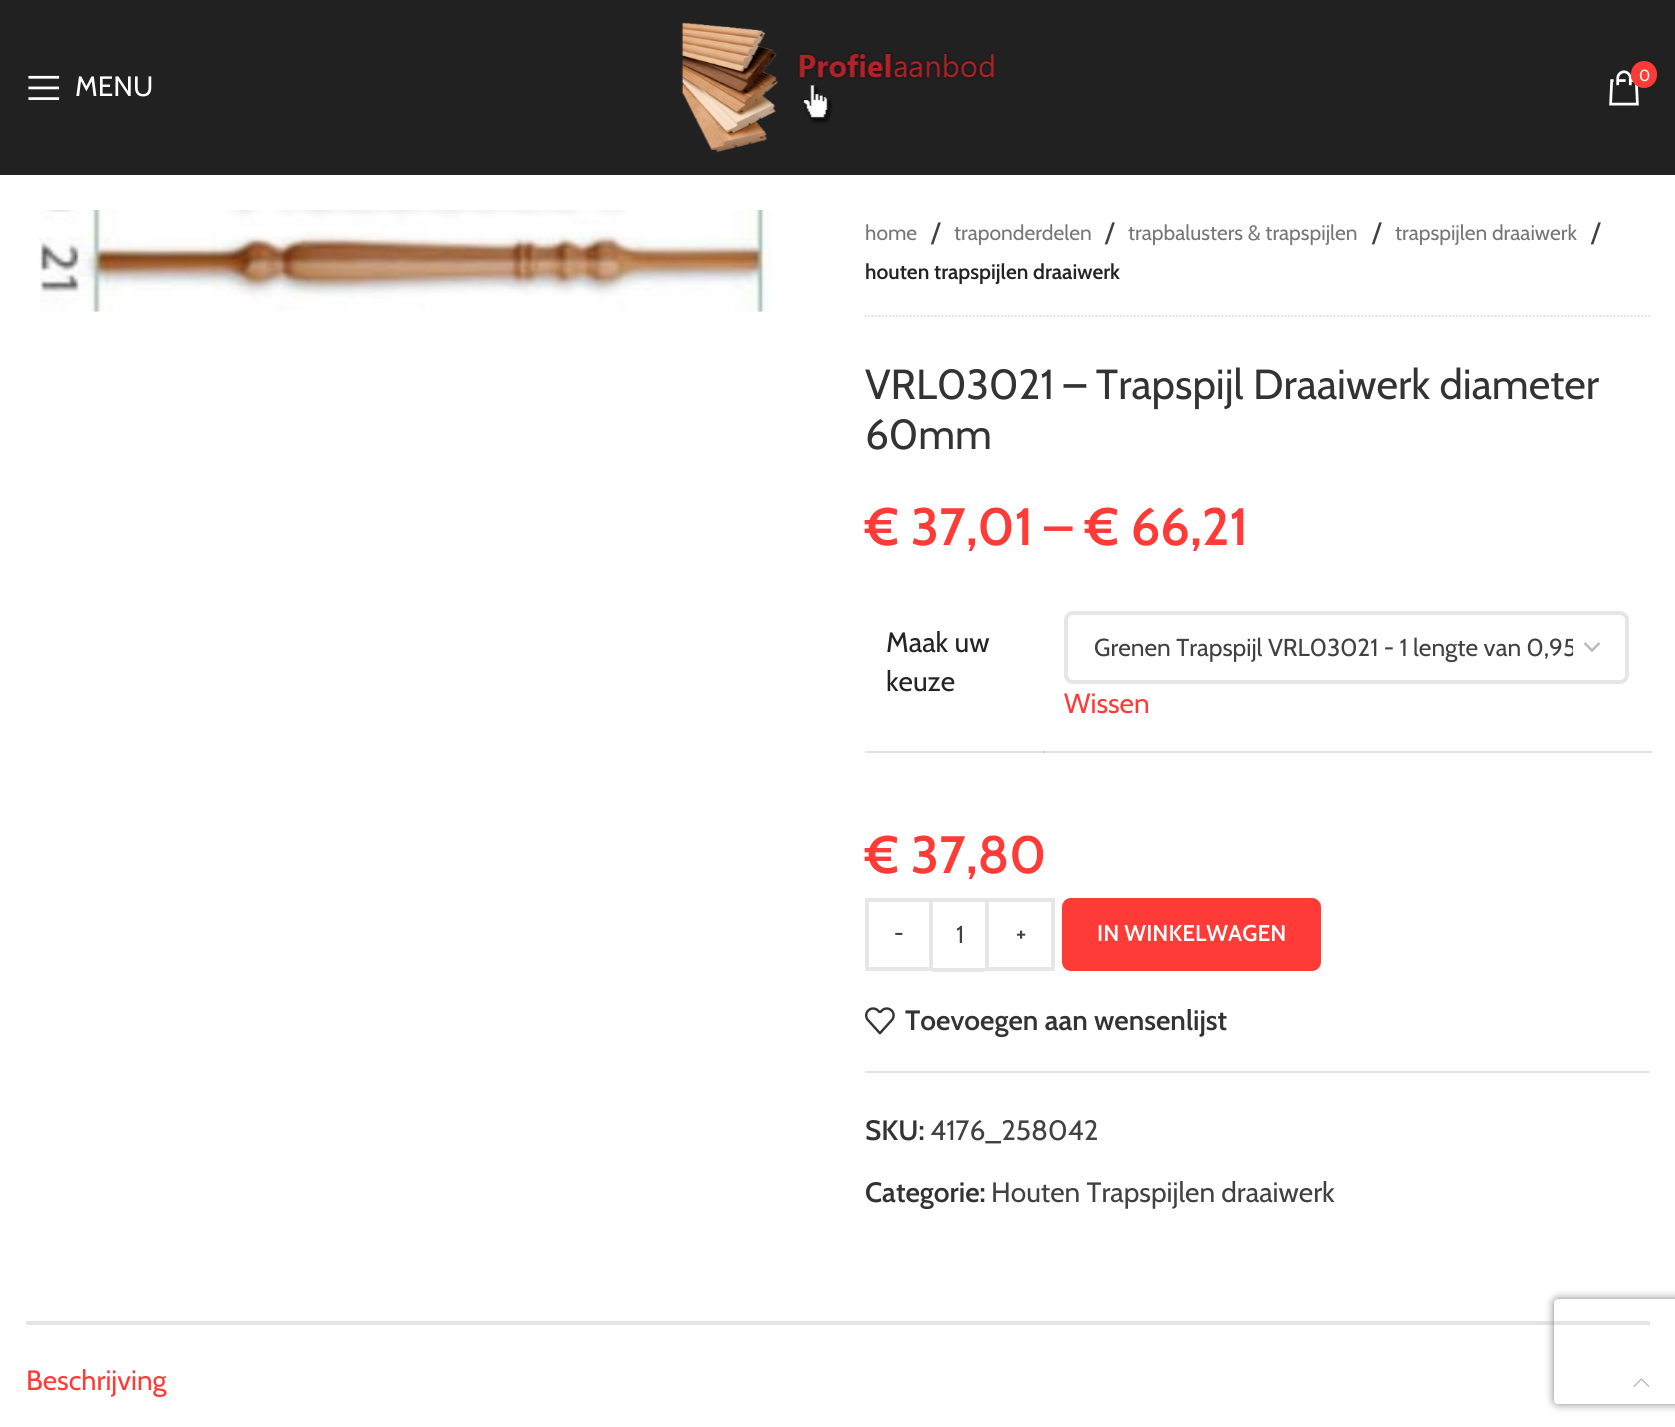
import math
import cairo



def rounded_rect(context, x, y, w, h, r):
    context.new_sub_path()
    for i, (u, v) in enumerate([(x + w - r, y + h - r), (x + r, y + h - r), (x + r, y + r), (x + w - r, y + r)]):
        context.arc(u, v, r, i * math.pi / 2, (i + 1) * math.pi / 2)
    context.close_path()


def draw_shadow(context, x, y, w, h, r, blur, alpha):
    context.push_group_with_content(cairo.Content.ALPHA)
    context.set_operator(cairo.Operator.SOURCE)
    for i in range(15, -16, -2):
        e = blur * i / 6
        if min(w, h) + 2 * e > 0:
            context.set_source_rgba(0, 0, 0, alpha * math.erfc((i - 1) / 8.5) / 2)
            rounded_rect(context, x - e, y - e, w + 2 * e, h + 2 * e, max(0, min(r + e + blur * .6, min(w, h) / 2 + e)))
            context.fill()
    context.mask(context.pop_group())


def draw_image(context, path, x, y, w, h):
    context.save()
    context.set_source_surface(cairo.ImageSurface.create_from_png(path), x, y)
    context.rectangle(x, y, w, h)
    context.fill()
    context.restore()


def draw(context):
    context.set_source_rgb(1, 1, 1)
    context.paint()
    context.set_source_rgb(227 / 255, 227 / 255, 227 / 255)
    context.rectangle(865, 751, 180, 2)
    context.fill()
    context.set_source_rgb(33 / 255, 33 / 255, 33 / 255)
    context.rectangle(0, 0, 1675, 175)
    context.fill()
    draw_image(context, "images/1.png", 28, 75, 32, 25)
    draw_image(context, "images/2.png", 681, 22, 314, 131)
    draw_image(context, "images/3.png", 1609, 70, 30, 36)
    context.set_source_rgb(1, 59 / 255, 56 / 255)
    rounded_rect(context, 1631, 61, 26, 27, 13)
    context.fill()
    draw_image(context, "images/4.png", 39, 210, 733, 102)
    context.new_path()
    context.move_to(864.5, 316)
    context.line_to(1650, 316)
    context.set_source_rgb(221 / 255, 221 / 255, 221 / 255)
    context.set_line_width(1.8)
    context.set_dash([1.75, 1.75])
    context.stroke()
    context.set_source_rgb(228 / 255, 228 / 255, 228 / 255)
    context.rectangle(1043, 751, 609, 2)
    context.fill()
    context.set_source_rgb(203 / 255, 203 / 255, 203 / 255)
    context.rectangle(1043, 751, 2, 2)
    context.fill()
    context.new_path()
    context.move_to(1584.5, 643)
    context.line_to(1592, 650.5)
    context.line_to(1599.5, 643)
    context.set_source_rgb(187 / 255, 187 / 255, 187 / 255)
    context.set_line_width(2.5)
    context.set_dash([])
    context.stroke()
    rounded_rect(context, 1066, 613, 561, 69, 7)
    context.set_source_rgb(230 / 255, 230 / 255, 230 / 255)
    context.set_line_width(4)
    context.stroke()
    context.rectangle(867, 900, 64, 69)
    context.stroke()
    context.rectangle(933, 898, 52, 4)
    context.fill()
    context.rectangle(933, 968, 52, 4)
    context.fill()
    context.rectangle(987, 900, 66, 69)
    context.stroke()
    context.set_source_rgb(1, 59 / 255, 56 / 255)
    rounded_rect(context, 1062, 898, 259, 73, 9)
    context.fill()
    draw_image(context, "images/5.png", 865, 1007, 30, 28)
    context.set_source_rgb(228 / 255, 228 / 255, 228 / 255)
    context.rectangle(865, 1071, 785, 2)
    context.fill()
    context.rectangle(26, 1321, 1624, 4)
    context.fill()
    draw_image(context, "images/6.png", 1633, 1378, 17, 9)
    context.save()
    context.set_fill_rule(cairo.FillRule.EVEN_ODD)
    context.new_path()
    context.move_to(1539, 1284)
    context.line_to(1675, 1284)
    context.line_to(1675, 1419)
    context.line_to(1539, 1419)
    context.close_path()
    context.move_to(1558, 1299)
    context.line_to(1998, 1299)
    context.curve_to(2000, 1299, 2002, 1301, 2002, 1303)
    context.line_to(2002, 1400)
    context.curve_to(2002, 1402, 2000, 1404, 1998, 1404)
    context.line_to(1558, 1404)
    context.curve_to(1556, 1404, 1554, 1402, 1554, 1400)
    context.line_to(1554, 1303)
    context.curve_to(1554, 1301, 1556, 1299, 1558, 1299)
    context.close_path()
    context.clip()
    context.set_source_rgb(128 / 255, 128 / 255, 128 / 255)
    draw_shadow(context, 1554, 1299, 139, 105, 4, 4.5, 1)
    context.restore()
    context.select_font_face("Cabin")
    context.set_font_size(28)
    context.set_source_rgb(1, 1, 1)
    context.move_to(75, 96)
    context.show_text("MENU")
    context.set_font_size(16)
    context.move_to(1639, 81)
    context.show_text("0")
    context.set_font_size(21)
    context.set_source_rgb(118 / 255, 118 / 255, 118 / 255)
    context.move_to(865, 240)
    context.show_text("home")
    context.set_font_size(28)
    context.set_source_rgb(65 / 255, 65 / 255, 65 / 255)
    context.move_to(931, 242)
    context.show_text("/")
    context.set_font_size(21)
    context.set_source_rgb(118 / 255, 118 / 255, 118 / 255)
    context.move_to(954, 240)
    context.show_text("traponderdelen")
    context.set_font_size(28)
    context.set_source_rgb(65 / 255, 65 / 255, 65 / 255)
    context.move_to(1105, 242)
    context.show_text("/")
    context.set_font_size(21)
    context.set_source_rgb(118 / 255, 118 / 255, 118 / 255)
    context.move_to(1128, 240)
    context.show_text("trapbalusters & trapspijlen")
    context.set_font_size(28)
    context.set_source_rgb(65 / 255, 65 / 255, 65 / 255)
    context.move_to(1372, 242)
    context.show_text("/")
    context.set_font_size(21)
    context.set_source_rgb(118 / 255, 118 / 255, 118 / 255)
    context.move_to(1395, 240)
    context.show_text("trapspijlen draaiwerk")
    context.set_font_size(28)
    context.set_source_rgb(65 / 255, 65 / 255, 65 / 255)
    context.move_to(1591, 242)
    context.show_text("/")
    context.select_font_face("Cabin SemiBold")
    context.set_font_size(21)
    context.set_source_rgb(36 / 255, 36 / 255, 36 / 255)
    context.move_to(865, 279)
    context.show_text("houten trapspijlen draaiwerk")
    context.select_font_face("Cabin")
    context.set_font_size(42)
    context.set_source_rgb(51 / 255, 51 / 255, 51 / 255)
    context.move_to(865, 399)
    context.show_text("VRL03021 – Trapspijl Draaiwerk diameter")
    context.move_to(865, 449)
    context.show_text("60mm")
    context.select_font_face("Cabin SemiBold")
    context.set_font_size(52.5)
    context.set_source_rgb(1, 59 / 255, 56 / 255)
    context.move_to(865, 545)
    context.show_text("€ 37,01")
    context.select_font_face("Cabin")
    context.move_to(1044, 545)
    context.show_text("–")
    context.select_font_face("Cabin SemiBold")
    context.move_to(1085, 545)
    context.show_text("€ 66,21")
    context.select_font_face("Cabin")
    context.set_font_size(28)
    context.set_source_rgb(36 / 255, 36 / 255, 36 / 255)
    context.move_to(886, 652)
    context.show_text("Maak uw")
    context.move_to(886, 691)
    context.show_text("keuze")
    context.save()
    context.rectangle(1094, 632, 479, 33)
    context.clip()
    context.set_font_size(24.5)
    context.set_source_rgb(65 / 255, 65 / 255, 65 / 255)
    context.move_to(1094, 656)
    context.show_text("Grenen Trapspijl VRL03021 - 1 lengte van 0,95")
    context.restore()
    context.set_source_rgb(1, 59 / 255, 56 / 255)
    context.move_to(1064, 713)
    context.show_text("Wissen")
    context.select_font_face("Cabin SemiBold")
    context.set_font_size(52.5)
    context.move_to(865, 873)
    context.show_text("€ 37,80")
    context.set_font_size(22.75)
    context.set_source_rgb(65 / 255, 65 / 255, 65 / 255)
    context.move_to(894, 941)
    context.show_text("-")
    context.select_font_face("Cabin")
    context.set_font_size(24.5)
    context.move_to(956, 943)
    context.show_text("1")
    context.select_font_face("Cabin SemiBold")
    context.set_font_size(22.75)
    context.move_to(1016, 941)
    context.show_text("+")
    context.set_source_rgb(1, 1, 1)
    context.move_to(1097, 941)
    context.show_text("IN WINKELWAGEN")
    context.set_font_size(28)
    context.set_source_rgb(51 / 255, 51 / 255, 51 / 255)
    context.move_to(905, 1030)
    context.show_text("Toevoegen aan wensenlijst")
    context.move_to(865, 1140)
    context.show_text("SKU:")
    context.select_font_face("Cabin")
    context.set_source_rgb(65 / 255, 65 / 255, 65 / 255)
    context.move_to(930, 1140)
    context.show_text("4176_258042")
    context.select_font_face("Cabin SemiBold")
    context.set_source_rgb(51 / 255, 51 / 255, 51 / 255)
    context.move_to(865, 1202)
    context.show_text("Categorie:")
    context.select_font_face("Cabin")
    context.set_source_rgb(65 / 255, 65 / 255, 65 / 255)
    context.move_to(991, 1202)
    context.show_text("Houten Trapspijlen draaiwerk")
    context.set_source_rgb(1, 59 / 255, 56 / 255)
    context.move_to(26, 1390)
    context.show_text("Beschrijving")


surface = cairo.ImageSurface(cairo.Format.RGB24, 1675, 1427)
context = cairo.Context(surface)
options = cairo.FontOptions()
options.set_hint_metrics(cairo.HintMetrics.OFF)
options.set_hint_style(cairo.HintStyle.NONE)
context.set_font_options(options)
context.set_miter_limit(4)
draw(context)
surface.write_to_png("out.png")
